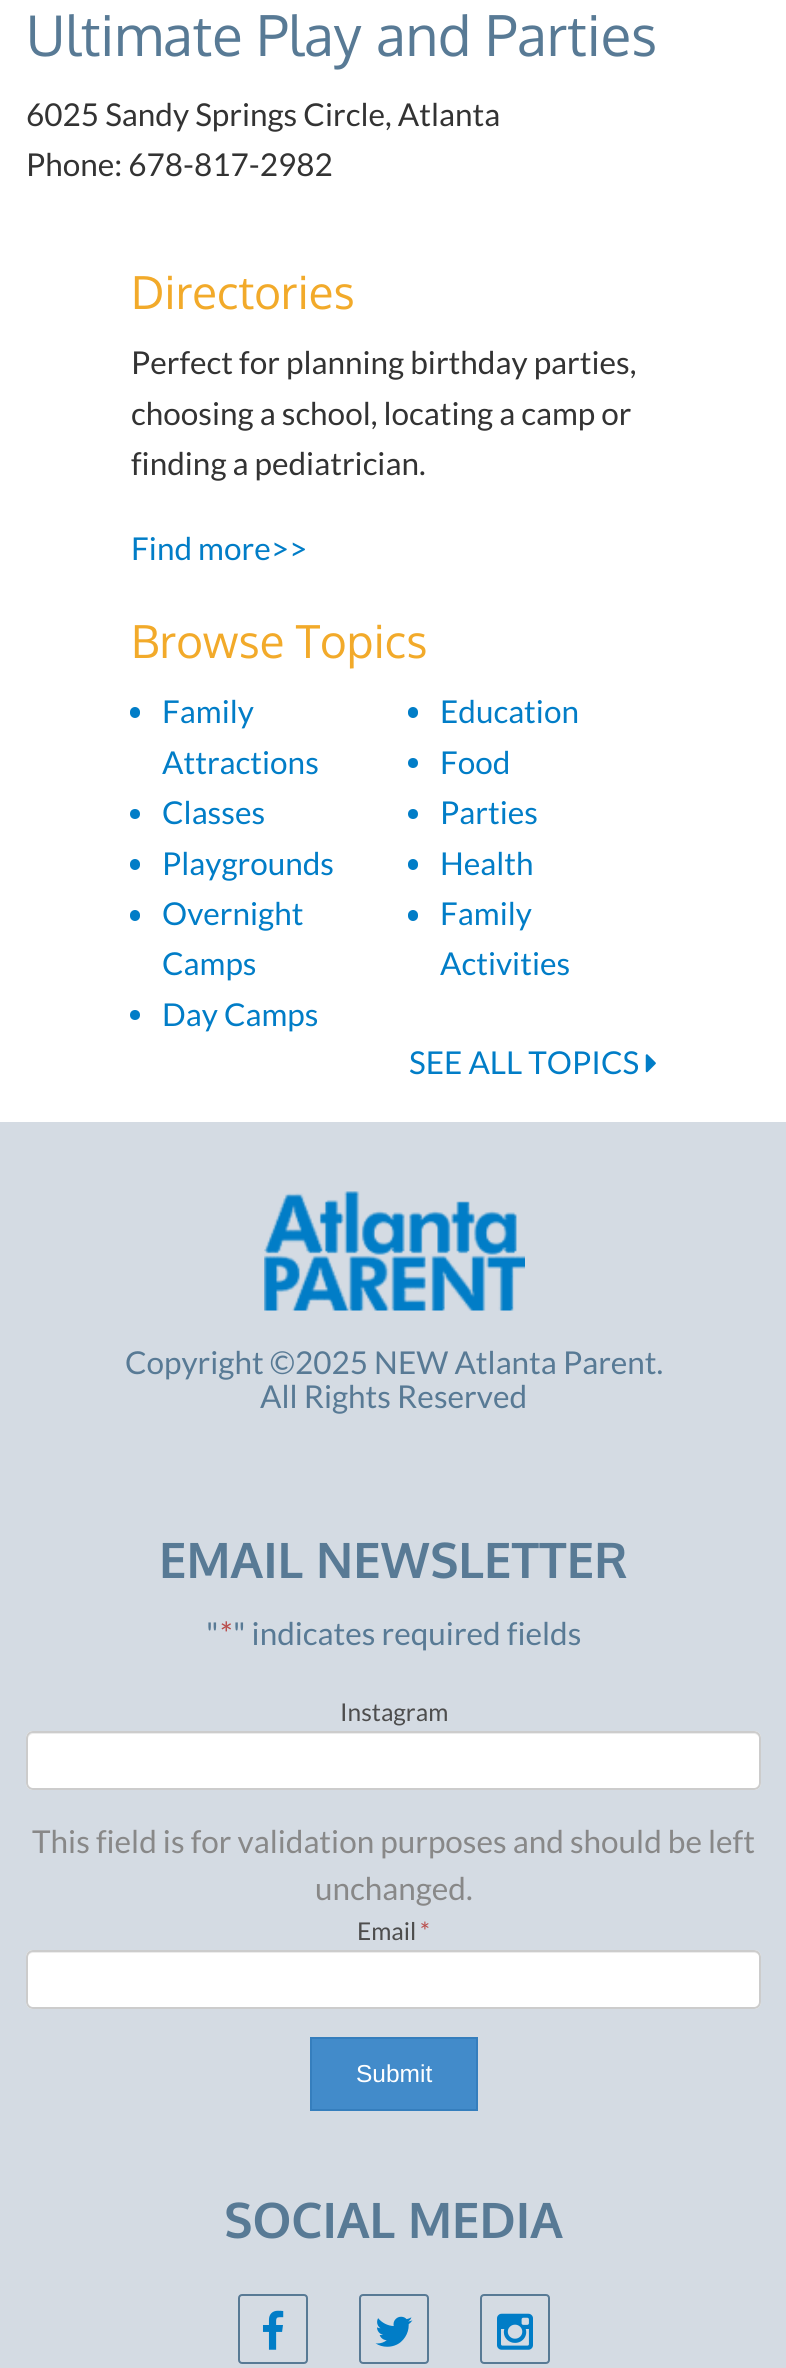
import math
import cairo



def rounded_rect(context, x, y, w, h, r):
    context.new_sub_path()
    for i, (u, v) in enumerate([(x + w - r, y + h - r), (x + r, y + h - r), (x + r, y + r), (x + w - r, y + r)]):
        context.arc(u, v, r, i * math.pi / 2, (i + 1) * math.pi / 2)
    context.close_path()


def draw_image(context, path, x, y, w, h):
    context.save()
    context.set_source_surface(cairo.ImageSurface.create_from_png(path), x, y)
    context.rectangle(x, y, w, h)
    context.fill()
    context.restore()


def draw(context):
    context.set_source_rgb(1, 1, 1)
    context.paint()
    context.set_source_rgb(1 / 255, 125 / 255, 199 / 255)
    rounded_rect(context, 130, 707, 10, 11, 5)
    context.fill()
    rounded_rect(context, 408, 707, 10, 11, 5)
    context.fill()
    context.arc(413, 763, 5, 0, 2 * math.pi)
    context.fill()
    context.arc(135, 814, 5, 0, 2 * math.pi)
    context.fill()
    context.arc(413, 814, 5, 0, 2 * math.pi)
    context.fill()
    rounded_rect(context, 130, 859, 10, 11, 5)
    context.fill()
    rounded_rect(context, 408, 859, 10, 11, 5)
    context.fill()
    rounded_rect(context, 130, 910, 10, 11, 5)
    context.fill()
    rounded_rect(context, 408, 910, 10, 11, 5)
    context.fill()
    context.arc(135, 1015, 5, 0, 2 * math.pi)
    context.fill()
    draw_image(context, "images/1.png", 645, 1054, 11, 19)
    context.set_source_rgb(212 / 255, 219 / 255, 227 / 255)
    context.rectangle(0, 1122, 786, 1246)
    context.fill()
    draw_image(context, "images/2.png", 264, 1191, 261, 120)
    context.set_source_rgb(1, 1, 1)
    rounded_rect(context, 26, 1731, 735, 59, 7)
    context.fill()
    context.set_source_rgb(236 / 255, 236 / 255, 236 / 255)
    context.new_path()
    context.move_to(33, 1734)
    context.line_to(754, 1734)
    context.curve_to(757, 1734, 760, 1737, 760, 1740)
    context.line_to(760, 1738)
    context.curve_to(760, 1735, 758, 1733, 755, 1733)
    context.line_to(33, 1733)
    context.curve_to(30, 1733, 28, 1735, 28, 1738)
    context.line_to(28, 1740)
    context.curve_to(28, 1737, 30, 1734, 33, 1734)
    context.close_path()
    context.fill()
    rounded_rect(context, 27, 1732, 733, 57, 6)
    context.set_source_rgb(204 / 255, 204 / 255, 204 / 255)
    context.stroke()
    context.set_source_rgb(1, 1, 1)
    rounded_rect(context, 26, 1950, 735, 59, 7)
    context.fill()
    context.set_source_rgb(236 / 255, 236 / 255, 236 / 255)
    context.new_path()
    context.move_to(33, 1953)
    context.line_to(754, 1953)
    context.curve_to(757, 1953, 760, 1955, 760, 1958)
    context.line_to(760, 1956)
    context.curve_to(760, 1953, 758, 1951, 755, 1951)
    context.line_to(33, 1951)
    context.curve_to(30, 1951, 28, 1953, 28, 1956)
    context.line_to(28, 1958)
    context.curve_to(28, 1955, 30, 1953, 33, 1953)
    context.close_path()
    context.fill()
    rounded_rect(context, 27, 1951, 733, 57, 6)
    context.set_source_rgb(204 / 255, 204 / 255, 204 / 255)
    context.stroke()
    context.set_source_rgb(66 / 255, 139 / 255, 202 / 255)
    context.rectangle(311, 2038, 166, 72)
    context.fill_preserve()
    context.set_source_rgb(53 / 255, 126 / 255, 189 / 255)
    context.stroke()
    rounded_rect(context, 239, 2295, 68, 68, 3)
    context.set_source_rgb(88 / 255, 122 / 255, 149 / 255)
    context.stroke()
    draw_image(context, "images/3.png", 262, 2310, 22, 40)
    rounded_rect(context, 360, 2295, 68, 68, 3)
    context.stroke()
    draw_image(context, "images/4.png", 375, 2316, 38, 31)
    rounded_rect(context, 481, 2295, 68, 68, 3)
    context.stroke()
    draw_image(context, "images/5.png", 497, 2313, 36, 37)
    context.select_font_face("Oxygen")
    context.set_font_size(56)
    context.move_to(26, 56)
    context.show_text("Ultimate Play and Parties")
    context.select_font_face("Lato")
    context.set_font_size(31.5)
    context.set_source_rgb(51 / 255, 51 / 255, 51 / 255)
    context.move_to(26, 126)
    context.show_text("6025 Sandy Springs Circle, Atlanta")
    context.move_to(26, 176)
    context.show_text("Phone: 678-817-2982")
    context.select_font_face("Oxygen")
    context.set_font_size(45.5)
    context.set_source_rgb(242 / 255, 170 / 255, 42 / 255)
    context.move_to(131, 309)
    context.show_text("Directories")
    context.select_font_face("Lato")
    context.set_font_size(31.5)
    context.set_source_rgb(51 / 255, 51 / 255, 51 / 255)
    context.move_to(131, 374)
    context.show_text("Perfect for planning birthday parties,")
    context.move_to(131, 425)
    context.show_text("choosing a school, locating a camp or")
    context.move_to(131, 475)
    context.show_text("finding a pediatrician.")
    context.set_source_rgb(1 / 255, 125 / 255, 199 / 255)
    context.move_to(131, 560)
    context.show_text("Find more>>")
    context.select_font_face("Oxygen")
    context.set_font_size(45.5)
    context.set_source_rgb(242 / 255, 170 / 255, 42 / 255)
    context.move_to(131, 658)
    context.show_text("Browse Topics")
    context.select_font_face("Lato")
    context.set_font_size(31.5)
    context.set_source_rgb(1 / 255, 125 / 255, 199 / 255)
    context.move_to(162, 723)
    context.show_text("Family")
    context.move_to(162, 774)
    context.show_text("Attractions")
    context.move_to(440, 723)
    context.show_text("Education")
    context.move_to(440, 774)
    context.show_text("Food")
    context.move_to(162, 824)
    context.show_text("Classes")
    context.move_to(440, 824)
    context.show_text("Parties")
    context.move_to(162, 875)
    context.show_text("Playgrounds")
    context.move_to(440, 875)
    context.show_text("Health")
    context.move_to(162, 925)
    context.show_text("Overnight")
    context.move_to(162, 975)
    context.show_text("Camps")
    context.move_to(440, 925)
    context.show_text("Family")
    context.move_to(440, 975)
    context.show_text("Activities")
    context.move_to(162, 1026)
    context.show_text("Day Camps")
    context.move_to(409, 1074)
    context.show_text("SEE ALL TOPICS")
    context.set_source_rgb(88 / 255, 122 / 255, 149 / 255)
    context.move_to(125, 1374)
    context.show_text("Copyright ©2025 NEW Atlanta Parent.")
    context.move_to(260, 1408)
    context.show_text("All Rights Reserved")
    context.select_font_face("Oxygen", cairo.FontSlant.NORMAL, cairo.FontWeight.BOLD)
    context.set_font_size(49)
    context.move_to(159, 1578)
    context.show_text("EMAIL NEWSLETTER")
    context.select_font_face("Lato")
    context.set_font_size(31.5)
    context.move_to(206, 1645)
    context.show_text("\"")
    context.set_source_rgb(185 / 255, 74 / 255, 72 / 255)
    context.move_to(220, 1645)
    context.show_text("*")
    context.set_source_rgb(88 / 255, 122 / 255, 149 / 255)
    context.move_to(233, 1645)
    context.show_text("\" indicates required fields")
    context.set_font_size(24.5)
    context.set_source_rgb(77 / 255, 77 / 255, 77 / 255)
    context.move_to(340, 1721)
    context.show_text("Instagram")
    context.set_font_size(31.5)
    context.set_source_rgb(136 / 255, 136 / 255, 136 / 255)
    context.move_to(32, 1853)
    context.show_text("This field is for validation purposes and should be left")
    context.move_to(315, 1900)
    context.show_text("unchanged.")
    context.set_font_size(24.5)
    context.set_source_rgb(77 / 255, 77 / 255, 77 / 255)
    context.move_to(357, 1940)
    context.show_text("Email")
    context.set_source_rgb(185 / 255, 74 / 255, 72 / 255)
    context.move_to(420, 1940)
    context.show_text("*")
    context.select_font_face("Liberation Sans")
    context.set_source_rgb(1, 1, 1)
    context.move_to(356, 2082)
    context.show_text("Submit")
    context.select_font_face("Oxygen", cairo.FontSlant.NORMAL, cairo.FontWeight.BOLD)
    context.set_font_size(49)
    context.set_source_rgb(88 / 255, 122 / 255, 149 / 255)
    context.move_to(224, 2238)
    context.show_text("SOCIAL MEDIA")


surface = cairo.ImageSurface(cairo.Format.RGB24, 786, 2368)
context = cairo.Context(surface)
options = cairo.FontOptions()
options.set_hint_metrics(cairo.HintMetrics.OFF)
options.set_hint_style(cairo.HintStyle.NONE)
context.set_font_options(options)
context.set_miter_limit(4)
draw(context)
surface.write_to_png("out.png")
